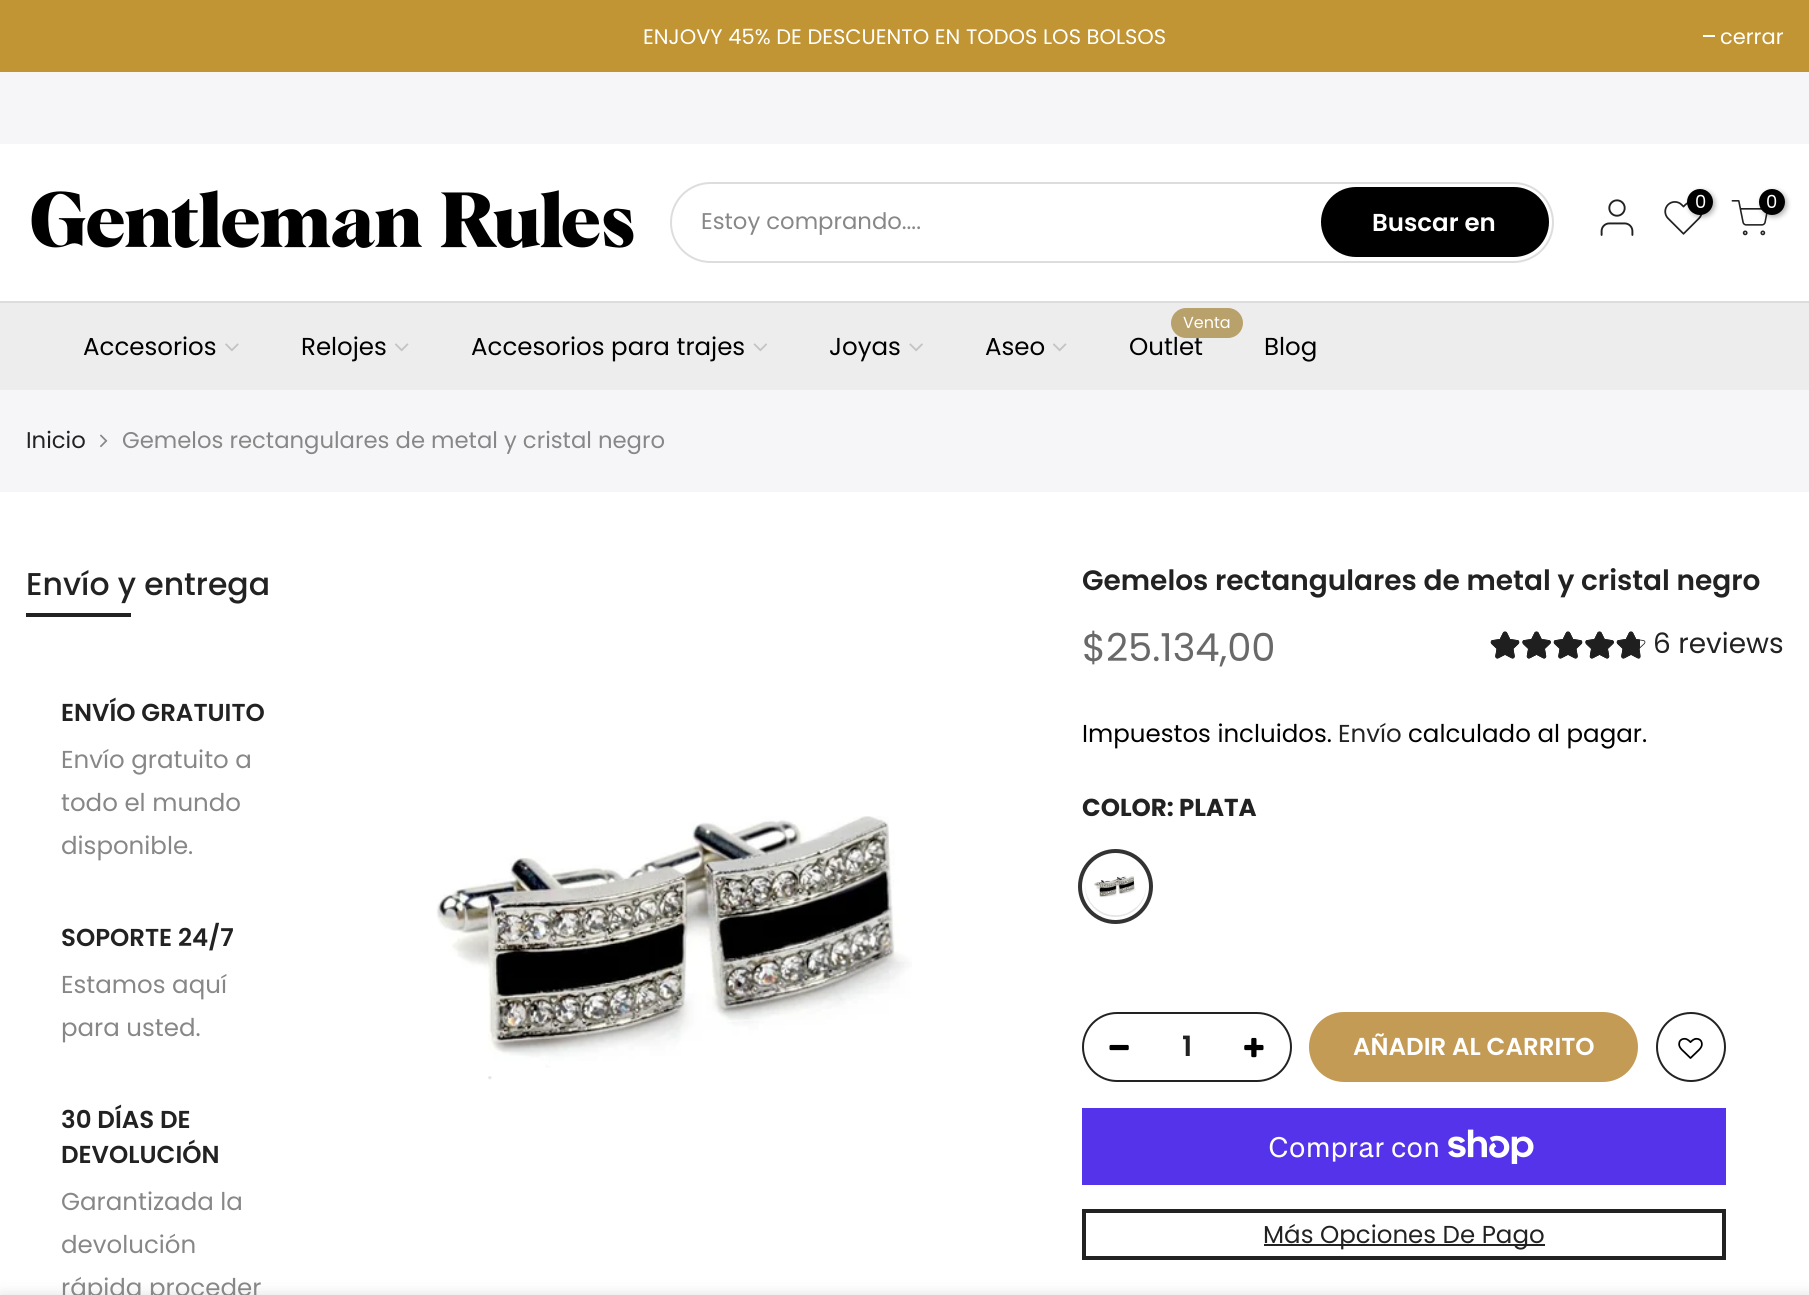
import math
import cairo



def rounded_rect(context, x, y, w, h, r):
    context.new_sub_path()
    for i, (u, v) in enumerate([(x + w - r, y + h - r), (x + r, y + h - r), (x + r, y + r), (x + w - r, y + r)]):
        context.arc(u, v, r, i * math.pi / 2, (i + 1) * math.pi / 2)
    context.close_path()


def draw_shadow(context, x, y, w, h, r, blur, alpha):
    context.push_group_with_content(cairo.Content.ALPHA)
    context.set_operator(cairo.Operator.SOURCE)
    for i in range(15, -16, -2):
        e = blur * i / 6
        if min(w, h) + 2 * e > 0:
            context.set_source_rgba(0, 0, 0, alpha * math.erfc((i - 1) / 8.5) / 2)
            rounded_rect(context, x - e, y - e, w + 2 * e, h + 2 * e, max(0, min(r + e + blur * .6, min(w, h) / 2 + e)))
            context.fill()
    context.mask(context.pop_group())


def draw_image(context, path, x, y, w, h):
    context.save()
    context.set_source_surface(cairo.ImageSurface.create_from_png(path), x, y)
    context.rectangle(x, y, w, h)
    context.fill()
    context.restore()


def draw(context):
    context.set_source_rgb(1, 1, 1)
    context.paint()
    context.set_source_rgb(193 / 255, 149 / 255, 51 / 255)
    context.rectangle(0, 0, 1809, 72)
    context.fill()
    context.set_source_rgb(1, 1, 1)
    context.rectangle(1703, 35, 12, 2)
    context.fill()
    context.set_source_rgb(246 / 255, 246 / 255, 248 / 255)
    context.rectangle(0, 72, 1809, 72)
    context.fill()
    draw_image(context, "images/1.png", 31, 190, 603, 58)
    draw_image(context, "images/2.png", 1600, 199, 34, 37)
    draw_image(context, "images/3.png", 1664, 201, 39, 34)
    context.set_source_rgb(0, 0, 0)
    draw_shadow(context, 1689, 191, 26, 26, 13, 2.5, 0.3)
    context.set_source_rgb(0, 0, 0)
    context.arc(1700, 202, 13, 0, 2 * math.pi)
    context.fill()
    draw_image(context, "images/4.png", 1731, 200, 37, 36)
    context.set_source_rgb(0, 0, 0)
    draw_shadow(context, 1761, 191, 26, 26, 13, 2.5, 0.3)
    context.set_source_rgb(0, 0, 0)
    context.arc(1772, 202, 13, 0, 2 * math.pi)
    context.fill()
    rounded_rect(context, 671, 183, 882, 79, 39.5)
    context.set_source_rgb(221 / 255, 221 / 255, 221 / 255)
    context.stroke()
    context.set_source_rgb(0, 0, 0)
    rounded_rect(context, 1321, 187, 228, 70, 35)
    context.fill()
    context.set_source_rgb(237 / 255, 237 / 255, 237 / 255)
    context.rectangle(0, 303, 1809, 87)
    context.fill()
    context.set_source_rgb(221 / 255, 221 / 255, 221 / 255)
    context.rectangle(0, 301, 1809, 2)
    context.fill()
    draw_image(context, "images/5.png", 225, 343, 14, 9)
    draw_image(context, "images/6.png", 395, 343, 14, 9)
    draw_image(context, "images/7.png", 753, 343, 14, 9)
    draw_image(context, "images/8.png", 909, 343, 14, 9)
    draw_image(context, "images/6.png", 1053, 343, 14, 9)
    context.set_source_rgb(246 / 255, 246 / 255, 248 / 255)
    context.rectangle(0, 390, 1809, 102)
    context.fill()
    draw_image(context, "images/9.png", 100, 434, 8, 14)
    context.set_source_rgb(34 / 255, 34 / 255, 34 / 255)
    context.rectangle(26, 613, 105, 4)
    context.fill()
    draw_image(context, "images/10.png", 436, 816, 476, 264)
    draw_image(context, "images/11.png", 1490, 631, 30, 28)
    draw_image(context, "images/12.png", 1491, 632, 28, 27)
    draw_image(context, "images/13.png", 1522, 631, 29, 28)
    draw_image(context, "images/14.png", 1523, 632, 28, 27)
    draw_image(context, "images/11.png", 1553, 631, 30, 28)
    draw_image(context, "images/12.png", 1554, 632, 28, 27)
    draw_image(context, "images/13.png", 1585, 631, 29, 28)
    draw_image(context, "images/14.png", 1586, 632, 28, 27)
    draw_image(context, "images/11.png", 1616, 631, 30, 28)
    draw_image(context, "images/15.png", 1617, 632, 23, 27)
    context.arc(1115.5, 886.5, 35.5, 0, 2 * math.pi)
    context.set_source_rgb(51 / 255, 51 / 255, 51 / 255)
    context.set_line_width(4)
    context.stroke()
    context.set_source_rgb(229 / 255, 229 / 255, 229 / 255)
    context.arc(1115.5, 886.5, 30.5, 0, 2 * math.pi)
    context.fill()
    draw_image(context, "images/16.png", 1085, 856, 61, 60)
    rounded_rect(context, 1083, 1013, 208, 68, 34)
    context.set_source_rgb(34 / 255, 34 / 255, 34 / 255)
    context.set_line_width(2)
    context.stroke()
    draw_image(context, "images/17.png", 1109, 1044, 20, 7)
    draw_image(context, "images/18.png", 1244, 1037, 20, 21)
    context.set_source_rgb(196 / 255, 155 / 255, 85 / 255)
    rounded_rect(context, 1309, 1012, 329, 70, 35)
    context.fill()
    context.arc(1691, 1047, 34, 0, 2 * math.pi)
    context.set_source_rgb(34 / 255, 34 / 255, 34 / 255)
    context.stroke()
    draw_image(context, "images/19.png", 1678, 1037, 25, 22)
    context.new_path()
    context.move_to(1680, 1037.5)
    context.curve_to(1683.5, 1034, 1688.5, 1032.5, 1693.5, 1033.5)
    context.curve_to(1711, 1037, 1708, 1063, 1690.5, 1063)
    context.curve_to(1686.5, 1063, 1683, 1061.5, 1680, 1059)
    context.set_source_rgb(1, 1, 1)
    context.set_line_width(1.8)
    context.stroke()
    context.set_source_rgb(84 / 255, 51 / 255, 235 / 255)
    context.rectangle(1082, 1108, 644, 77)
    context.fill()
    draw_image(context, "images/20.png", 1448, 1129, 86, 35)
    context.rectangle(1084, 1211, 640, 47)
    context.set_source_rgb(34 / 255, 34 / 255, 34 / 255)
    context.set_line_width(4)
    context.stroke()
    context.rectangle(1264, 1244, 281, 2)
    context.fill()
    context.set_source_rgb(0, 0, 0)
    draw_shadow(context, 0, 1295, 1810, 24, 0, 8, 0.12)
    context.select_font_face("Poppins")
    context.set_font_size(21)
    context.set_source_rgb(1, 1, 1)
    context.move_to(643, 44)
    context.show_text("ENJOVY 45% DE DESCUENTO EN TODOS LOS BOLSOS")
    context.move_to(1720, 44)
    context.show_text("cerrar")
    context.set_font_size(18)
    context.move_to(1695, 208)
    context.show_text("0")
    context.move_to(1766, 208)
    context.show_text("0")
    context.set_font_size(22.75)
    context.set_source_rgb(135 / 255, 135 / 255, 135 / 255)
    context.move_to(701, 229)
    context.show_text("Estoy comprando....")
    context.select_font_face("Poppins SemiBold")
    context.set_font_size(24.5)
    context.set_source_rgb(1, 1, 1)
    context.move_to(1372, 231)
    context.show_text("Buscar en")
    context.select_font_face("Poppins")
    context.set_source_rgb(0, 0, 0)
    context.move_to(83, 355)
    context.show_text("Accesorios")
    context.move_to(301, 355)
    context.show_text("Relojes")
    context.move_to(471, 355)
    context.show_text("Accesorios para trajes")
    context.move_to(829, 355)
    context.show_text("Joyas")
    context.move_to(985, 355)
    context.show_text("Aseo")
    context.move_to(1129, 355)
    context.show_text("Outlet")
    context.set_source_rgb(185 / 255, 161 / 255, 107 / 255)
    rounded_rect(context, 1171, 308, 72, 30, 15)
    context.fill()
    context.set_font_size(16)
    context.set_source_rgb(1, 1, 1)
    context.move_to(1183, 328)
    context.show_text("Venta")
    context.set_font_size(24.5)
    context.set_source_rgb(0, 0, 0)
    context.move_to(1264, 355)
    context.show_text("Blog")
    context.set_font_size(22.75)
    context.set_source_rgb(34 / 255, 34 / 255, 34 / 255)
    context.move_to(26, 448)
    context.show_text("Inicio")
    context.set_source_rgb(135 / 255, 135 / 255, 135 / 255)
    context.move_to(122, 448)
    context.show_text("Gemelos rectangulares de metal y cristal negro")
    context.select_font_face("Poppins Medium")
    context.set_font_size(31.5)
    context.set_source_rgb(34 / 255, 34 / 255, 34 / 255)
    context.move_to(26, 595)
    context.show_text("Envío y entrega")
    context.select_font_face("Poppins SemiBold")
    context.set_font_size(24.5)
    context.move_to(61, 721)
    context.show_text("ENVÍO GRATUITO")
    context.select_font_face("Poppins")
    context.set_source_rgb(135 / 255, 135 / 255, 135 / 255)
    context.move_to(61, 768)
    context.show_text("Envío gratuito a")
    context.move_to(61, 811)
    context.show_text("todo el mundo")
    context.move_to(61, 854)
    context.show_text("disponible.")
    context.select_font_face("Poppins SemiBold")
    context.set_source_rgb(34 / 255, 34 / 255, 34 / 255)
    context.move_to(61, 946)
    context.show_text("SOPORTE 24/7")
    context.select_font_face("Poppins")
    context.set_source_rgb(135 / 255, 135 / 255, 135 / 255)
    context.move_to(61, 993)
    context.show_text("Estamos aquí")
    context.move_to(61, 1036)
    context.show_text("para usted.")
    context.select_font_face("Poppins SemiBold")
    context.set_source_rgb(34 / 255, 34 / 255, 34 / 255)
    context.move_to(61, 1128)
    context.show_text("30 DÍAS DE")
    context.move_to(61, 1163)
    context.show_text("DEVOLUCIÓN")
    context.select_font_face("Poppins")
    context.set_source_rgb(135 / 255, 135 / 255, 135 / 255)
    context.move_to(61, 1210)
    context.show_text("Garantizada la")
    context.move_to(61, 1253)
    context.show_text("devolución")
    context.move_to(61, 1296)
    context.show_text("rápida proceder")
    context.select_font_face("Poppins SemiBold")
    context.set_font_size(28)
    context.set_source_rgb(34 / 255, 34 / 255, 34 / 255)
    context.move_to(1082, 590)
    context.show_text("Gemelos rectangulares de metal y cristal negro")
    context.select_font_face("Poppins")
    context.set_font_size(38.5)
    context.set_source_rgb(105 / 255, 105 / 255, 105 / 255)
    context.move_to(1082, 661)
    context.show_text("$25.134,00")
    context.set_font_size(28)
    context.set_source_rgb(34 / 255, 34 / 255, 34 / 255)
    context.move_to(1653, 653)
    context.show_text("6 reviews")
    context.set_font_size(24.5)
    context.set_source_rgb(0, 0, 0)
    context.move_to(1082, 742)
    context.show_text("Impuestos incluidos.")
    context.set_source_rgb(34 / 255, 34 / 255, 34 / 255)
    context.move_to(1338, 742)
    context.show_text("Envío")
    context.set_source_rgb(0, 0, 0)
    context.move_to(1408, 742)
    context.show_text("calculado al pagar.")
    context.select_font_face("Poppins", cairo.FontSlant.NORMAL, cairo.FontWeight.BOLD)
    context.set_source_rgb(34 / 255, 34 / 255, 34 / 255)
    context.move_to(1082, 816)
    context.show_text("COLOR: PLATA")
    context.select_font_face("Poppins SemiBold")
    context.set_font_size(28)
    context.move_to(1182, 1056)
    context.show_text("1")
    context.set_font_size(24.5)
    context.set_source_rgb(1, 1, 1)
    context.move_to(1353, 1055)
    context.show_text("AÑADIR AL CARRITO")
    context.select_font_face("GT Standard")
    context.set_font_size(28)
    context.move_to(1268, 1157)
    context.show_text("Comprar con")
    context.select_font_face("Poppins")
    context.set_font_size(24.5)
    context.set_source_rgb(34 / 255, 34 / 255, 34 / 255)
    context.move_to(1263, 1243)
    context.show_text("Más Opciones De Pago")


surface = cairo.ImageSurface(cairo.Format.RGB24, 1809, 1295)
context = cairo.Context(surface)
options = cairo.FontOptions()
options.set_hint_metrics(cairo.HintMetrics.OFF)
options.set_hint_style(cairo.HintStyle.NONE)
context.set_font_options(options)
context.set_miter_limit(4)
draw(context)
surface.write_to_png("out.png")
